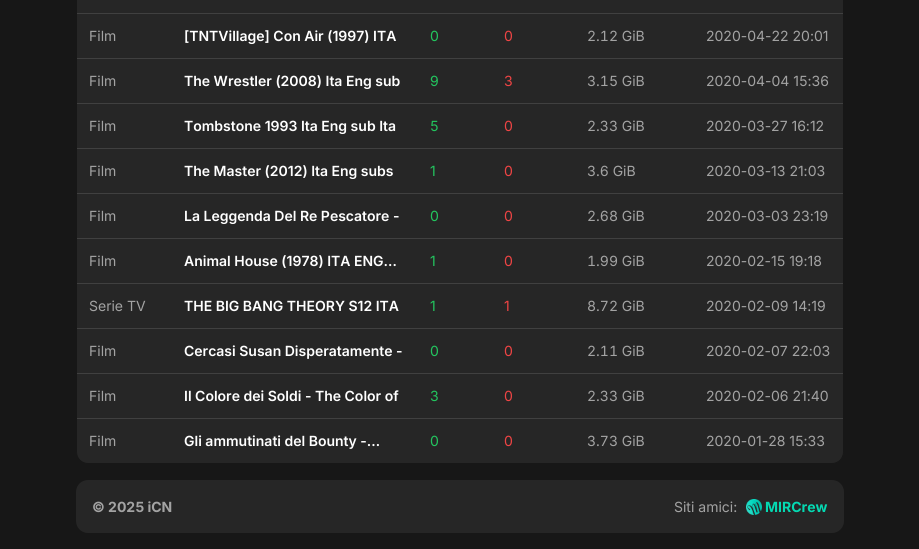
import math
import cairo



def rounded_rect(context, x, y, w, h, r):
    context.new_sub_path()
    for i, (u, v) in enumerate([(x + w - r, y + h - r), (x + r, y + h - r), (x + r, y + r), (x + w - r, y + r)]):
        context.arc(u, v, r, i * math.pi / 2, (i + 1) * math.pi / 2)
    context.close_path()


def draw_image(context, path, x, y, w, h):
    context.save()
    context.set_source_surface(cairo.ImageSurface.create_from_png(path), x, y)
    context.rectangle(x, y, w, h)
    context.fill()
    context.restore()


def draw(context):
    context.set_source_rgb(23 / 255, 23 / 255, 23 / 255)
    context.paint()
    context.set_source_rgb(38 / 255, 38 / 255, 38 / 255)
    rounded_rect(context, 76.5, -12.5, 767, 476, 11.5)
    context.fill_preserve()
    context.set_source_rgb(23 / 255, 23 / 255, 23 / 255)
    context.set_line_width(1)
    context.stroke()
    context.set_source_rgb(64 / 255, 64 / 255, 64 / 255)
    context.rectangle(77, 13, 766, 1)
    context.fill()
    context.rectangle(77, 58, 766, 1)
    context.fill()
    context.rectangle(77, 103, 766, 1)
    context.fill()
    context.rectangle(77, 148, 766, 1)
    context.fill()
    context.rectangle(77, 193, 766, 1)
    context.fill()
    context.rectangle(77, 238, 766, 1)
    context.fill()
    context.rectangle(77, 283, 766, 1)
    context.fill()
    context.rectangle(77, 328, 766, 1)
    context.fill()
    context.rectangle(77, 373, 766, 1)
    context.fill()
    context.rectangle(77, 418, 766, 1)
    context.fill()
    context.set_source_rgb(38 / 255, 38 / 255, 38 / 255)
    rounded_rect(context, 76, 480, 768, 53, 12)
    context.fill()
    draw_image(context, "images/1.png", 746, 499, 16, 16)
    context.select_font_face("Inter")
    context.set_font_size(14)
    context.set_source_rgb(163 / 255, 163 / 255, 163 / 255)
    context.move_to(89, 41)
    context.show_text("Film")
    context.select_font_face("Inter SemiBold")
    context.set_source_rgb(1, 1, 1)
    context.move_to(184, 41)
    context.show_text("[TNTVillage] Con Air (1997) ITA")
    context.select_font_face("Inter")
    context.set_source_rgb(34 / 255, 197 / 255, 94 / 255)
    context.move_to(430, 41)
    context.show_text("0")
    context.set_source_rgb(239 / 255, 68 / 255, 68 / 255)
    context.move_to(504, 41)
    context.show_text("0")
    context.select_font_face("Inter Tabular")
    context.set_source_rgb(163 / 255, 163 / 255, 163 / 255)
    context.move_to(587, 41)
    context.show_text("2.12 GiB")
    context.select_font_face("Inter")
    context.move_to(706, 41)
    context.show_text("2020-04-22 20:01")
    context.move_to(89, 86)
    context.show_text("Film")
    context.select_font_face("Inter SemiBold")
    context.set_source_rgb(1, 1, 1)
    context.move_to(184, 86)
    context.show_text("The Wrestler (2008) Ita Eng sub")
    context.select_font_face("Inter")
    context.set_source_rgb(34 / 255, 197 / 255, 94 / 255)
    context.move_to(430, 86)
    context.show_text("9")
    context.set_source_rgb(239 / 255, 68 / 255, 68 / 255)
    context.move_to(504, 86)
    context.show_text("3")
    context.select_font_face("Inter Tabular")
    context.set_source_rgb(163 / 255, 163 / 255, 163 / 255)
    context.move_to(587, 86)
    context.show_text("3.15 GiB")
    context.select_font_face("Inter")
    context.move_to(706, 86)
    context.show_text("2020-04-04 15:36")
    context.move_to(89, 131)
    context.show_text("Film")
    context.select_font_face("Inter SemiBold")
    context.set_source_rgb(1, 1, 1)
    context.move_to(184, 131)
    context.show_text("Tombstone 1993 Ita Eng sub Ita")
    context.select_font_face("Inter")
    context.set_source_rgb(34 / 255, 197 / 255, 94 / 255)
    context.move_to(430, 131)
    context.show_text("5")
    context.set_source_rgb(239 / 255, 68 / 255, 68 / 255)
    context.move_to(504, 131)
    context.show_text("0")
    context.select_font_face("Inter Tabular")
    context.set_source_rgb(163 / 255, 163 / 255, 163 / 255)
    context.move_to(587, 131)
    context.show_text("2.33 GiB")
    context.select_font_face("Inter")
    context.move_to(706, 131)
    context.show_text("2020-03-27 16:12")
    context.move_to(89, 176)
    context.show_text("Film")
    context.select_font_face("Inter SemiBold")
    context.set_source_rgb(1, 1, 1)
    context.move_to(184, 176)
    context.show_text("The Master (2012) Ita Eng subs")
    context.select_font_face("Inter")
    context.set_source_rgb(34 / 255, 197 / 255, 94 / 255)
    context.move_to(430, 176)
    context.show_text("1")
    context.set_source_rgb(239 / 255, 68 / 255, 68 / 255)
    context.move_to(504, 176)
    context.show_text("0")
    context.select_font_face("Inter Tabular")
    context.set_source_rgb(163 / 255, 163 / 255, 163 / 255)
    context.move_to(587, 176)
    context.show_text("3.6 GiB")
    context.select_font_face("Inter")
    context.move_to(706, 176)
    context.show_text("2020-03-13 21:03")
    context.move_to(89, 221)
    context.show_text("Film")
    context.select_font_face("Inter SemiBold")
    context.set_source_rgb(1, 1, 1)
    context.move_to(184, 221)
    context.show_text("La Leggenda Del Re Pescatore -")
    context.select_font_face("Inter")
    context.set_source_rgb(34 / 255, 197 / 255, 94 / 255)
    context.move_to(430, 221)
    context.show_text("0")
    context.set_source_rgb(239 / 255, 68 / 255, 68 / 255)
    context.move_to(504, 221)
    context.show_text("0")
    context.select_font_face("Inter Tabular")
    context.set_source_rgb(163 / 255, 163 / 255, 163 / 255)
    context.move_to(587, 221)
    context.show_text("2.68 GiB")
    context.select_font_face("Inter")
    context.move_to(706, 221)
    context.show_text("2020-03-03 23:19")
    context.move_to(89, 266)
    context.show_text("Film")
    context.select_font_face("Inter SemiBold")
    context.set_source_rgb(1, 1, 1)
    context.move_to(184, 266)
    context.show_text("Animal House (1978) ITA ENG…")
    context.select_font_face("Inter")
    context.set_source_rgb(34 / 255, 197 / 255, 94 / 255)
    context.move_to(430, 266)
    context.show_text("1")
    context.set_source_rgb(239 / 255, 68 / 255, 68 / 255)
    context.move_to(504, 266)
    context.show_text("0")
    context.select_font_face("Inter Tabular")
    context.set_source_rgb(163 / 255, 163 / 255, 163 / 255)
    context.move_to(587, 266)
    context.show_text("1.99 GiB")
    context.select_font_face("Inter")
    context.move_to(706, 266)
    context.show_text("2020-02-15 19:18")
    context.move_to(89, 311)
    context.show_text("Serie TV")
    context.select_font_face("Inter SemiBold")
    context.set_source_rgb(1, 1, 1)
    context.move_to(184, 311)
    context.show_text("THE BIG BANG THEORY S12 ITA")
    context.select_font_face("Inter")
    context.set_source_rgb(34 / 255, 197 / 255, 94 / 255)
    context.move_to(430, 311)
    context.show_text("1")
    context.set_source_rgb(239 / 255, 68 / 255, 68 / 255)
    context.move_to(504, 311)
    context.show_text("1")
    context.select_font_face("Inter Tabular")
    context.set_source_rgb(163 / 255, 163 / 255, 163 / 255)
    context.move_to(587, 311)
    context.show_text("8.72 GiB")
    context.select_font_face("Inter")
    context.move_to(706, 311)
    context.show_text("2020-02-09 14:19")
    context.move_to(89, 356)
    context.show_text("Film")
    context.select_font_face("Inter SemiBold")
    context.set_source_rgb(1, 1, 1)
    context.move_to(184, 356)
    context.show_text("Cercasi Susan Disperatamente -")
    context.select_font_face("Inter")
    context.set_source_rgb(34 / 255, 197 / 255, 94 / 255)
    context.move_to(430, 356)
    context.show_text("0")
    context.set_source_rgb(239 / 255, 68 / 255, 68 / 255)
    context.move_to(504, 356)
    context.show_text("0")
    context.select_font_face("Inter Tabular")
    context.set_source_rgb(163 / 255, 163 / 255, 163 / 255)
    context.move_to(587, 356)
    context.show_text("2.11 GiB")
    context.select_font_face("Inter")
    context.move_to(706, 356)
    context.show_text("2020-02-07 22:03")
    context.move_to(89, 401)
    context.show_text("Film")
    context.select_font_face("Inter SemiBold")
    context.set_source_rgb(1, 1, 1)
    context.move_to(184, 401)
    context.show_text("Il Colore dei Soldi - The Color of")
    context.select_font_face("Inter")
    context.set_source_rgb(34 / 255, 197 / 255, 94 / 255)
    context.move_to(430, 401)
    context.show_text("3")
    context.set_source_rgb(239 / 255, 68 / 255, 68 / 255)
    context.move_to(504, 401)
    context.show_text("0")
    context.select_font_face("Inter Tabular")
    context.set_source_rgb(163 / 255, 163 / 255, 163 / 255)
    context.move_to(587, 401)
    context.show_text("2.33 GiB")
    context.select_font_face("Inter")
    context.move_to(706, 401)
    context.show_text("2020-02-06 21:40")
    context.move_to(89, 446)
    context.show_text("Film")
    context.select_font_face("Inter SemiBold")
    context.set_source_rgb(1, 1, 1)
    context.move_to(184, 446)
    context.show_text("Gli ammutinati del Bounty -…")
    context.select_font_face("Inter")
    context.set_source_rgb(34 / 255, 197 / 255, 94 / 255)
    context.move_to(430, 446)
    context.show_text("0")
    context.set_source_rgb(239 / 255, 68 / 255, 68 / 255)
    context.move_to(504, 446)
    context.show_text("0")
    context.select_font_face("Inter Tabular")
    context.set_source_rgb(163 / 255, 163 / 255, 163 / 255)
    context.move_to(587, 446)
    context.show_text("3.73 GiB")
    context.select_font_face("Inter")
    context.move_to(706, 446)
    context.show_text("2020-01-28 15:33")
    context.select_font_face("Inter", cairo.FontSlant.NORMAL, cairo.FontWeight.BOLD)
    context.move_to(92, 512)
    context.show_text("© 2025 iCN")
    context.select_font_face("Inter")
    context.move_to(674, 512)
    context.show_text("Siti amici:")
    context.select_font_face("Inter", cairo.FontSlant.NORMAL, cairo.FontWeight.BOLD)
    context.set_source_rgb(4 / 255, 217 / 255, 178 / 255)
    context.move_to(765, 512)
    context.show_text("MIRCrew")


surface = cairo.ImageSurface(cairo.Format.RGB24, 919, 549)
context = cairo.Context(surface)
options = cairo.FontOptions()
options.set_hint_metrics(cairo.HintMetrics.OFF)
options.set_hint_style(cairo.HintStyle.NONE)
context.set_font_options(options)
context.set_miter_limit(4)
draw(context)
surface.write_to_png("out.png")
